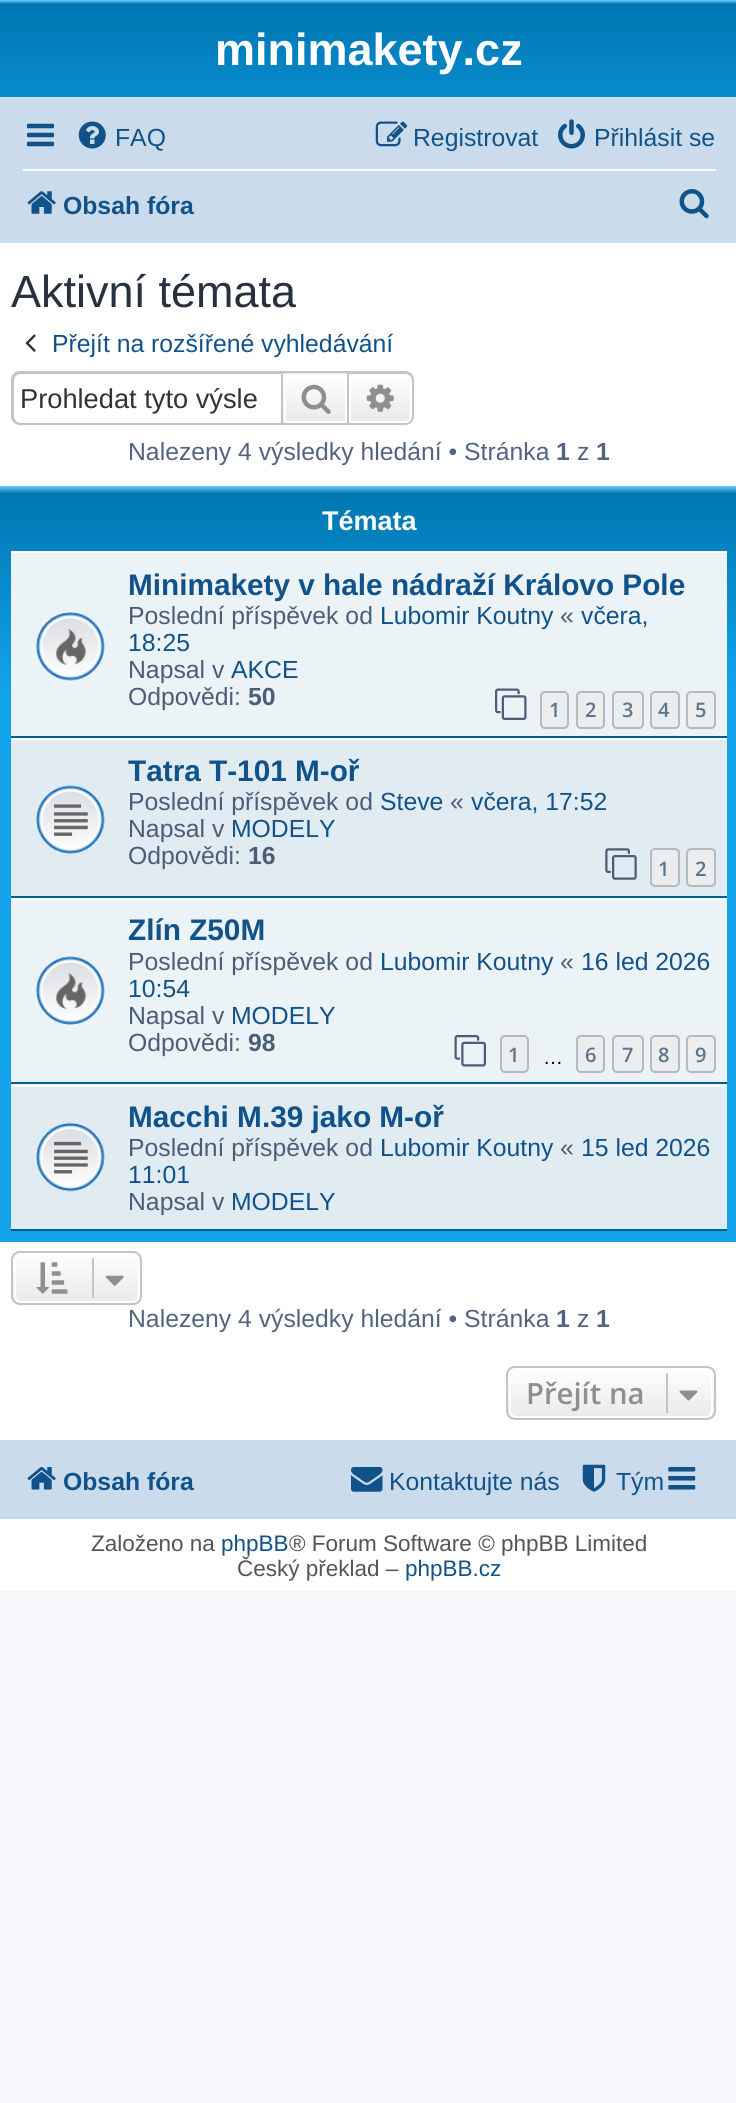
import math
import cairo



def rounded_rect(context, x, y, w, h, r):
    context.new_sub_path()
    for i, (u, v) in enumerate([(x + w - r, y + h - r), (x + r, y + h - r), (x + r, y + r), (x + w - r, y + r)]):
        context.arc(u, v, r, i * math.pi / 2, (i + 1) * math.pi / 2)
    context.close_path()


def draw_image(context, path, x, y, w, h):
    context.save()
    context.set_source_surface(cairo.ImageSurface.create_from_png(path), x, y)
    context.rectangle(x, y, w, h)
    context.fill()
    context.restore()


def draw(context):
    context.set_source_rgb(245 / 255, 247 / 255, 250 / 255)
    context.paint()
    context.set_source_rgb(1, 1, 1)
    context.rectangle(0, 243, 736, 1348)
    context.fill()
    gradient = cairo.LinearGradient(369, 0, 369, 207)
    gradient.add_color_stop_rgba(0, 106 / 255, 206 / 255, 1, 1)
    gradient.add_color_stop_rgba(0.02, 0, 118 / 255, 177 / 255, 1)
    gradient.add_color_stop_rgba(1, 18 / 255, 163 / 255, 235 / 255, 1)
    context.set_source(gradient)
    context.rectangle(0, 0, 736, 97)
    context.fill()
    context.set_source_rgb(202 / 255, 220 / 255, 235 / 255)
    context.rectangle(0, 97, 736, 146)
    context.fill()
    draw_image(context, "images/1.png", 27, 123, 27, 24)
    draw_image(context, "images/2.png", 78, 121, 28, 28)
    draw_image(context, "images/3.png", 375, 121, 33, 26)
    draw_image(context, "images/4.png", 558, 119, 27, 30)
    context.set_source_rgb(1, 1, 1)
    context.rectangle(23, 169, 693, 2)
    context.fill()
    draw_image(context, "images/5.png", 27, 191, 29, 23)
    draw_image(context, "images/6.png", 679, 189, 30, 30)
    draw_image(context, "images/7.png", 25, 334, 11, 18)
    context.set_source_rgb(199 / 255, 195 / 255, 191 / 255)
    context.set_fill_rule(cairo.FillRule.EVEN_ODD)
    context.new_path()
    context.move_to(20, 371)
    context.line_to(281, 371)
    context.line_to(281, 425)
    context.line_to(20, 425)
    context.curve_to(15, 425, 11, 421, 11, 416)
    context.line_to(11, 380)
    context.curve_to(11, 375, 15, 371, 20, 371)
    context.close_path()
    context.move_to(20, 374)
    context.line_to(281, 374)
    context.line_to(281, 423)
    context.line_to(20, 423)
    context.curve_to(17, 423, 14, 420, 14, 416)
    context.line_to(14, 380)
    context.curve_to(14, 377, 17, 374, 20, 374)
    context.close_path()
    context.fill()
    context.set_source_rgb(233 / 255, 233 / 255, 233 / 255)
    context.rectangle(283, 373, 64, 1)
    context.fill()
    gradient = cairo.LinearGradient(315, 374, 315, 423)
    gradient.add_color_stop_rgba(0, 1, 1, 1, 1)
    gradient.add_color_stop_rgba(1, 233 / 255, 233 / 255, 233 / 255, 1)
    context.set_source(gradient)
    context.rectangle(283, 380, 62, 43)
    context.fill()
    context.rectangle(285, 375, 61, 47)
    context.set_source_rgb(1, 1, 1)
    context.stroke()
    context.rectangle(282, 372, 66, 52)
    context.set_source_rgb(199 / 255, 195 / 255, 191 / 255)
    context.stroke()
    draw_image(context, "images/8.png", 301, 384, 30, 30)
    gradient = cairo.LinearGradient(380, 374, 380, 423)
    gradient.add_color_stop_rgba(0, 1, 1, 1, 1)
    gradient.add_color_stop_rgba(1, 233 / 255, 233 / 255, 233 / 255, 1)
    context.set_source(gradient)
    context.new_path()
    context.move_to(350, 375)
    context.line_to(405, 375)
    context.curve_to(408.5, 375, 411, 377.5, 411, 381)
    context.line_to(411, 416)
    context.curve_to(411, 419.5, 408.5, 422, 405, 422)
    context.line_to(350, 422)
    context.close_path()
    context.fill_preserve()
    context.set_source_rgb(1, 1, 1)
    context.stroke()
    context.set_source_rgb(199 / 255, 195 / 255, 191 / 255)
    context.new_path()
    context.move_to(349, 371)
    context.line_to(405, 371)
    context.curve_to(410, 371, 414, 375, 414, 380)
    context.line_to(414, 416)
    context.curve_to(414, 421, 410, 425, 405, 425)
    context.line_to(349, 425)
    context.close_path()
    context.move_to(349, 374)
    context.line_to(405, 374)
    context.curve_to(409, 374, 412, 377, 412, 380)
    context.line_to(412, 416)
    context.curve_to(412, 420, 409, 423, 405, 423)
    context.line_to(349, 423)
    context.close_path()
    context.fill()
    draw_image(context, "images/9.png", 366, 384, 28, 28)
    gradient = cairo.LinearGradient(369, 486, 369, 1242)
    gradient.add_color_stop_rgba(0, 106 / 255, 206 / 255, 1, 1)
    gradient.add_color_stop_rgba(0.01, 0, 118 / 255, 177 / 255, 1)
    gradient.add_color_stop_rgba(0.27, 18 / 255, 163 / 255, 235 / 255, 1)
    gradient.add_color_stop_rgba(1, 18 / 255, 163 / 255, 235 / 255, 1)
    context.set_source(gradient)
    context.rectangle(0, 486, 736, 756)
    context.fill()
    context.set_source_rgb(236 / 255, 243 / 255, 247 / 255)
    context.rectangle(11, 553, 716, 183)
    context.fill()
    context.set_source_rgb(1, 1, 1)
    context.rectangle(11, 551, 716, 2)
    context.fill()
    context.set_source_rgb(0, 96 / 255, 143 / 255)
    context.rectangle(11, 736, 716, 2)
    context.fill()
    draw_image(context, "images/10.png", 36, 612, 69, 69)
    draw_image(context, "images/11.png", 495, 688, 32, 32)
    context.set_source_rgb(236 / 255, 237 / 255, 238 / 255)
    rounded_rect(context, 541, 692, 27, 36, 4)
    context.fill_preserve()
    context.set_source_rgb(180 / 255, 186 / 255, 192 / 255)
    context.stroke()
    context.set_source_rgb(236 / 255, 237 / 255, 238 / 255)
    rounded_rect(context, 577, 692, 27, 36, 4)
    context.fill_preserve()
    context.set_source_rgb(180 / 255, 186 / 255, 192 / 255)
    context.stroke()
    context.set_source_rgb(236 / 255, 237 / 255, 238 / 255)
    rounded_rect(context, 613, 692, 30, 36, 4)
    context.fill_preserve()
    context.set_source_rgb(180 / 255, 186 / 255, 192 / 255)
    context.stroke()
    context.set_source_rgb(236 / 255, 237 / 255, 238 / 255)
    rounded_rect(context, 651, 692, 28, 36, 4)
    context.fill_preserve()
    context.set_source_rgb(180 / 255, 186 / 255, 192 / 255)
    context.stroke()
    context.set_source_rgb(236 / 255, 237 / 255, 238 / 255)
    rounded_rect(context, 687, 692, 28, 36, 4)
    context.fill_preserve()
    context.set_source_rgb(180 / 255, 186 / 255, 192 / 255)
    context.stroke()
    context.set_source_rgb(225 / 255, 235 / 255, 242 / 255)
    context.rectangle(11, 740, 716, 156)
    context.fill()
    context.set_source_rgb(1, 1, 1)
    context.rectangle(11, 738, 716, 2)
    context.fill()
    context.set_source_rgb(0, 96 / 255, 143 / 255)
    context.rectangle(11, 896, 716, 2)
    context.fill()
    draw_image(context, "images/12.png", 36, 785, 69, 69)
    draw_image(context, "images/13.png", 605, 848, 32, 32)
    context.set_source_rgb(236 / 255, 237 / 255, 238 / 255)
    rounded_rect(context, 651, 849, 28, 37, 4)
    context.fill_preserve()
    context.set_source_rgb(180 / 255, 186 / 255, 192 / 255)
    context.stroke()
    context.set_source_rgb(236 / 255, 237 / 255, 238 / 255)
    rounded_rect(context, 687, 849, 28, 37, 4)
    context.fill_preserve()
    context.set_source_rgb(180 / 255, 186 / 255, 192 / 255)
    context.stroke()
    context.set_source_rgb(236 / 255, 243 / 255, 247 / 255)
    context.rectangle(11, 900, 716, 185)
    context.fill()
    context.set_source_rgb(1, 1, 1)
    context.rectangle(11, 898, 716, 2)
    context.fill()
    context.set_source_rgb(0, 96 / 255, 143 / 255)
    context.rectangle(11, 1082, 716, 2)
    context.fill()
    draw_image(context, "images/14.png", 36, 956, 69, 69)
    draw_image(context, "images/15.png", 454, 1035, 32, 32)
    context.set_source_rgb(236 / 255, 237 / 255, 238 / 255)
    rounded_rect(context, 501, 1036, 27, 36, 4)
    context.fill_preserve()
    context.set_source_rgb(180 / 255, 186 / 255, 192 / 255)
    context.stroke()
    context.set_source_rgb(236 / 255, 237 / 255, 238 / 255)
    rounded_rect(context, 577, 1036, 27, 36, 4)
    context.fill_preserve()
    context.set_source_rgb(180 / 255, 186 / 255, 192 / 255)
    context.stroke()
    context.set_source_rgb(236 / 255, 237 / 255, 238 / 255)
    rounded_rect(context, 613, 1036, 30, 36, 4)
    context.fill_preserve()
    context.set_source_rgb(180 / 255, 186 / 255, 192 / 255)
    context.stroke()
    context.set_source_rgb(236 / 255, 237 / 255, 238 / 255)
    rounded_rect(context, 651, 1036, 28, 36, 4)
    context.fill_preserve()
    context.set_source_rgb(180 / 255, 186 / 255, 192 / 255)
    context.stroke()
    context.set_source_rgb(236 / 255, 237 / 255, 238 / 255)
    rounded_rect(context, 687, 1036, 28, 36, 4)
    context.fill_preserve()
    context.set_source_rgb(180 / 255, 186 / 255, 192 / 255)
    context.stroke()
    context.set_source_rgb(225 / 255, 235 / 255, 242 / 255)
    context.rectangle(11, 1087, 716, 142)
    context.fill()
    context.set_source_rgb(1, 1, 1)
    context.rectangle(11, 1085, 716, 2)
    context.fill()
    context.set_source_rgb(0, 96 / 255, 143 / 255)
    context.rectangle(11, 1229, 716, 2)
    context.fill()
    draw_image(context, "images/16.png", 36, 1122, 69, 70)
    context.save()
    context.set_fill_rule(cairo.FillRule.WINDING)
    rounded_rect(context, 11, 1251, 131, 54, 9)
    context.clip()
    gradient = cairo.LinearGradient(77, 1253, 77, 1303)
    gradient.add_color_stop_rgba(0, 1, 1, 1, 1)
    gradient.add_color_stop_rgba(1, 233 / 255, 233 / 255, 233 / 255, 1)
    context.set_source(gradient)
    context.rectangle(11, 1253, 131, 50)
    context.fill()
    context.restore()
    rounded_rect(context, 15, 1254, 124, 48, 6)
    context.set_source_rgb(1, 1, 1)
    context.stroke()
    rounded_rect(context, 12, 1252, 129, 52, 8)
    context.set_source_rgb(199 / 255, 195 / 255, 191 / 255)
    context.stroke()
    draw_image(context, "images/17.png", 36, 1262, 32, 32)
    context.rectangle(92, 1258, 2, 40)
    context.fill()
    draw_image(context, "images/18.png", 105, 1275, 19, 11)
    context.save()
    context.set_fill_rule(cairo.FillRule.WINDING)
    rounded_rect(context, 506, 1366, 210, 54, 9)
    context.clip()
    gradient = cairo.LinearGradient(611, 1368, 611, 1418)
    gradient.add_color_stop_rgba(0, 1, 1, 1, 1)
    gradient.add_color_stop_rgba(1, 233 / 255, 233 / 255, 233 / 255, 1)
    context.set_source(gradient)
    context.rectangle(506, 1368, 210, 50)
    context.fill()
    context.restore()
    rounded_rect(context, 510, 1369, 202, 48, 6)
    context.set_source_rgb(1, 1, 1)
    context.stroke()
    rounded_rect(context, 507, 1367, 208, 52, 8)
    context.set_source_rgb(199 / 255, 195 / 255, 191 / 255)
    context.stroke()
    context.rectangle(666, 1373, 2, 40)
    context.fill()
    draw_image(context, "images/19.png", 679, 1390, 19, 11)
    context.set_source_rgb(202 / 255, 220 / 255, 235 / 255)
    context.rectangle(0, 1440, 736, 79)
    context.fill()
    draw_image(context, "images/20.png", 27, 1467, 29, 23)
    draw_image(context, "images/21.png", 351, 1467, 32, 25)
    draw_image(context, "images/22.png", 582, 1464, 24, 28)
    draw_image(context, "images/23.png", 668, 1467, 28, 23)
    context.select_font_face("Liberation Sans", cairo.FontSlant.NORMAL, cairo.FontWeight.BOLD)
    context.set_font_size(45)
    context.set_source_rgb(1, 1, 1)
    context.move_to(215, 65)
    context.show_text("minimakety.cz")
    context.select_font_face("Liberation Sans")
    context.set_font_size(24.75)
    context.set_source_rgb(16 / 255, 82 / 255, 137 / 255)
    context.move_to(115, 146)
    context.show_text("FAQ")
    context.move_to(413, 146)
    context.show_text("Registrovat")
    context.move_to(594, 146)
    context.show_text("Přihlásit se")
    context.select_font_face("Liberation Sans", cairo.FontSlant.NORMAL, cairo.FontWeight.BOLD)
    context.move_to(63, 214)
    context.show_text("Obsah fóra")
    context.select_font_face("Liberation Sans")
    context.set_font_size(45)
    context.set_source_rgb(40 / 255, 49 / 255, 63 / 255)
    context.move_to(11, 307)
    context.show_text("Aktivní témata")
    context.set_font_size(24.75)
    context.set_source_rgb(16 / 255, 82 / 255, 137 / 255)
    context.move_to(52, 352)
    context.show_text("Přejít na rozšířené vyhledávání")
    context.set_font_size(27.25)
    context.set_source_rgb(51 / 255, 51 / 255, 51 / 255)
    context.move_to(20, 408)
    context.show_text("Prohledat tyto výsle")
    context.set_font_size(24.75)
    context.set_source_rgb(83 / 255, 100 / 255, 130 / 255)
    context.move_to(128, 460)
    context.show_text("Nalezeny 4 výsledky hledání • Stránka")
    context.select_font_face("Liberation Sans", cairo.FontSlant.NORMAL, cairo.FontWeight.BOLD)
    context.move_to(556, 460)
    context.show_text("1")
    context.select_font_face("Liberation Sans")
    context.move_to(577, 460)
    context.show_text("z")
    context.select_font_face("Liberation Sans", cairo.FontSlant.NORMAL, cairo.FontWeight.BOLD)
    context.move_to(596, 460)
    context.show_text("1")
    context.set_font_size(27)
    context.set_source_rgb(1, 1, 1)
    context.move_to(322, 530)
    context.show_text("Témata")
    context.set_font_size(29.75)
    context.set_source_rgb(16 / 255, 82 / 255, 137 / 255)
    context.move_to(128, 595)
    context.show_text("Minimakety v hale nádraží Královo Pole")
    context.select_font_face("Liberation Sans")
    context.set_font_size(24.75)
    context.set_source_rgb(76 / 255, 93 / 255, 119 / 255)
    context.move_to(128, 624)
    context.show_text("Poslední příspěvek od")
    context.set_source_rgb(16 / 255, 82 / 255, 137 / 255)
    context.move_to(380, 624)
    context.show_text("Lubomir Koutny")
    context.set_source_rgb(76 / 255, 93 / 255, 119 / 255)
    context.move_to(560, 624)
    context.show_text("«")
    context.set_source_rgb(16 / 255, 82 / 255, 137 / 255)
    context.move_to(581, 624)
    context.show_text("včera,")
    context.move_to(128, 651)
    context.show_text("18:25")
    context.set_source_rgb(76 / 255, 93 / 255, 119 / 255)
    context.move_to(128, 678)
    context.show_text("Napsal v")
    context.set_source_rgb(16 / 255, 82 / 255, 137 / 255)
    context.move_to(231, 678)
    context.show_text("AKCE")
    context.set_source_rgb(76 / 255, 93 / 255, 119 / 255)
    context.move_to(128, 705)
    context.show_text("Odpovědi:")
    context.select_font_face("Liberation Sans", cairo.FontSlant.NORMAL, cairo.FontWeight.BOLD)
    context.move_to(248, 705)
    context.show_text("50")
    context.select_font_face("Open Sans SemiBold")
    context.set_font_size(20)
    context.set_source_rgb(92 / 255, 117 / 255, 140 / 255)
    context.move_to(549, 717)
    context.show_text("1")
    context.move_to(585, 717)
    context.show_text("2")
    context.move_to(622, 717)
    context.show_text("3")
    context.move_to(658, 717)
    context.show_text("4")
    context.move_to(695, 717)
    context.show_text("5")
    context.select_font_face("Liberation Sans", cairo.FontSlant.NORMAL, cairo.FontWeight.BOLD)
    context.set_font_size(29.75)
    context.set_source_rgb(16 / 255, 82 / 255, 137 / 255)
    context.move_to(128, 781)
    context.show_text("Tatra T-101 M-oř")
    context.select_font_face("Liberation Sans")
    context.set_font_size(24.75)
    context.set_source_rgb(76 / 255, 93 / 255, 119 / 255)
    context.move_to(128, 810)
    context.show_text("Poslední příspěvek od")
    context.set_source_rgb(16 / 255, 82 / 255, 137 / 255)
    context.move_to(380, 810)
    context.show_text("Steve")
    context.set_source_rgb(76 / 255, 93 / 255, 119 / 255)
    context.move_to(450, 810)
    context.show_text("«")
    context.set_source_rgb(16 / 255, 82 / 255, 137 / 255)
    context.move_to(471, 810)
    context.show_text("včera, 17:52")
    context.set_source_rgb(76 / 255, 93 / 255, 119 / 255)
    context.move_to(128, 837)
    context.show_text("Napsal v")
    context.set_source_rgb(16 / 255, 82 / 255, 137 / 255)
    context.move_to(231, 837)
    context.show_text("MODELY")
    context.set_source_rgb(76 / 255, 93 / 255, 119 / 255)
    context.move_to(128, 864)
    context.show_text("Odpovědi:")
    context.select_font_face("Liberation Sans", cairo.FontSlant.NORMAL, cairo.FontWeight.BOLD)
    context.move_to(248, 864)
    context.show_text("16")
    context.select_font_face("Open Sans SemiBold")
    context.set_font_size(20)
    context.set_source_rgb(92 / 255, 117 / 255, 140 / 255)
    context.move_to(658, 876)
    context.show_text("1")
    context.move_to(695, 876)
    context.show_text("2")
    context.select_font_face("Liberation Sans", cairo.FontSlant.NORMAL, cairo.FontWeight.BOLD)
    context.set_font_size(29.75)
    context.set_source_rgb(16 / 255, 82 / 255, 137 / 255)
    context.move_to(128, 940)
    context.show_text("Zlín Z50M")
    context.select_font_face("Liberation Sans")
    context.set_font_size(24.75)
    context.set_source_rgb(76 / 255, 93 / 255, 119 / 255)
    context.move_to(128, 970)
    context.show_text("Poslední příspěvek od")
    context.set_source_rgb(16 / 255, 82 / 255, 137 / 255)
    context.move_to(380, 970)
    context.show_text("Lubomir Koutny")
    context.set_source_rgb(76 / 255, 93 / 255, 119 / 255)
    context.move_to(560, 970)
    context.show_text("«")
    context.set_source_rgb(16 / 255, 82 / 255, 137 / 255)
    context.move_to(581, 970)
    context.show_text("16 led 2026")
    context.move_to(128, 997)
    context.show_text("10:54")
    context.set_source_rgb(76 / 255, 93 / 255, 119 / 255)
    context.move_to(128, 1024)
    context.show_text("Napsal v")
    context.set_source_rgb(16 / 255, 82 / 255, 137 / 255)
    context.move_to(231, 1024)
    context.show_text("MODELY")
    context.set_source_rgb(76 / 255, 93 / 255, 119 / 255)
    context.move_to(128, 1051)
    context.show_text("Odpovědi:")
    context.select_font_face("Liberation Sans", cairo.FontSlant.NORMAL, cairo.FontWeight.BOLD)
    context.move_to(248, 1051)
    context.show_text("98")
    context.select_font_face("Open Sans SemiBold")
    context.set_font_size(20)
    context.set_source_rgb(92 / 255, 117 / 255, 140 / 255)
    context.move_to(508, 1062)
    context.show_text("1")
    context.select_font_face("Liberation Sans")
    context.set_source_rgb(0, 0, 0)
    context.move_to(543, 1064)
    context.show_text("…")
    context.select_font_face("Open Sans SemiBold")
    context.set_source_rgb(92 / 255, 117 / 255, 140 / 255)
    context.move_to(585, 1062)
    context.show_text("6")
    context.move_to(622, 1062)
    context.show_text("7")
    context.move_to(658, 1062)
    context.show_text("8")
    context.move_to(695, 1062)
    context.show_text("9")
    context.select_font_face("Liberation Sans", cairo.FontSlant.NORMAL, cairo.FontWeight.BOLD)
    context.set_font_size(29.75)
    context.set_source_rgb(16 / 255, 82 / 255, 137 / 255)
    context.move_to(128, 1127)
    context.show_text("Macchi M.39 jako M-oř")
    context.select_font_face("Liberation Sans")
    context.set_font_size(24.75)
    context.set_source_rgb(76 / 255, 93 / 255, 119 / 255)
    context.move_to(128, 1156)
    context.show_text("Poslední příspěvek od")
    context.set_source_rgb(16 / 255, 82 / 255, 137 / 255)
    context.move_to(380, 1156)
    context.show_text("Lubomir Koutny")
    context.set_source_rgb(76 / 255, 93 / 255, 119 / 255)
    context.move_to(560, 1156)
    context.show_text("«")
    context.set_source_rgb(16 / 255, 82 / 255, 137 / 255)
    context.move_to(581, 1156)
    context.show_text("15 led 2026")
    context.move_to(128, 1183)
    context.show_text("11:01")
    context.set_source_rgb(76 / 255, 93 / 255, 119 / 255)
    context.move_to(128, 1210)
    context.show_text("Napsal v")
    context.set_source_rgb(16 / 255, 82 / 255, 137 / 255)
    context.move_to(231, 1210)
    context.show_text("MODELY")
    context.set_source_rgb(83 / 255, 100 / 255, 130 / 255)
    context.move_to(128, 1327)
    context.show_text("Nalezeny 4 výsledky hledání • Stránka")
    context.select_font_face("Liberation Sans", cairo.FontSlant.NORMAL, cairo.FontWeight.BOLD)
    context.move_to(556, 1327)
    context.show_text("1")
    context.select_font_face("Liberation Sans")
    context.move_to(577, 1327)
    context.show_text("z")
    context.select_font_face("Liberation Sans", cairo.FontSlant.NORMAL, cairo.FontWeight.BOLD)
    context.move_to(596, 1327)
    context.show_text("1")
    context.select_font_face("Open Sans SemiBold")
    context.set_font_size(29.25)
    context.set_source_rgb(143 / 255, 143 / 255, 143 / 255)
    context.move_to(526, 1404)
    context.show_text("Přejít na")
    context.select_font_face("Liberation Sans", cairo.FontSlant.NORMAL, cairo.FontWeight.BOLD)
    context.set_font_size(24.75)
    context.set_source_rgb(16 / 255, 82 / 255, 137 / 255)
    context.move_to(63, 1490)
    context.show_text("Obsah fóra")
    context.select_font_face("Liberation Sans")
    context.move_to(389, 1490)
    context.show_text("Kontaktujte nás")
    context.move_to(616, 1490)
    context.show_text("Tým")
    context.set_font_size(22.5)
    context.set_source_rgb(85 / 255, 85 / 255, 85 / 255)
    context.move_to(91, 1551)
    context.show_text("Založeno na")
    context.set_source_rgb(16 / 255, 82 / 255, 137 / 255)
    context.move_to(221, 1551)
    context.show_text("phpBB")
    context.set_source_rgb(85 / 255, 85 / 255, 85 / 255)
    context.move_to(289, 1551)
    context.show_text("® Forum Software © phpBB Limited")
    context.move_to(237, 1576)
    context.show_text("Český překlad –")
    context.set_source_rgb(16 / 255, 82 / 255, 137 / 255)
    context.move_to(405, 1576)
    context.show_text("phpBB.cz")


surface = cairo.ImageSurface(cairo.Format.RGB24, 736, 2103)
context = cairo.Context(surface)
options = cairo.FontOptions()
options.set_hint_metrics(cairo.HintMetrics.OFF)
options.set_hint_style(cairo.HintStyle.NONE)
context.set_font_options(options)
context.set_miter_limit(4)
draw(context)
surface.write_to_png("out.png")
